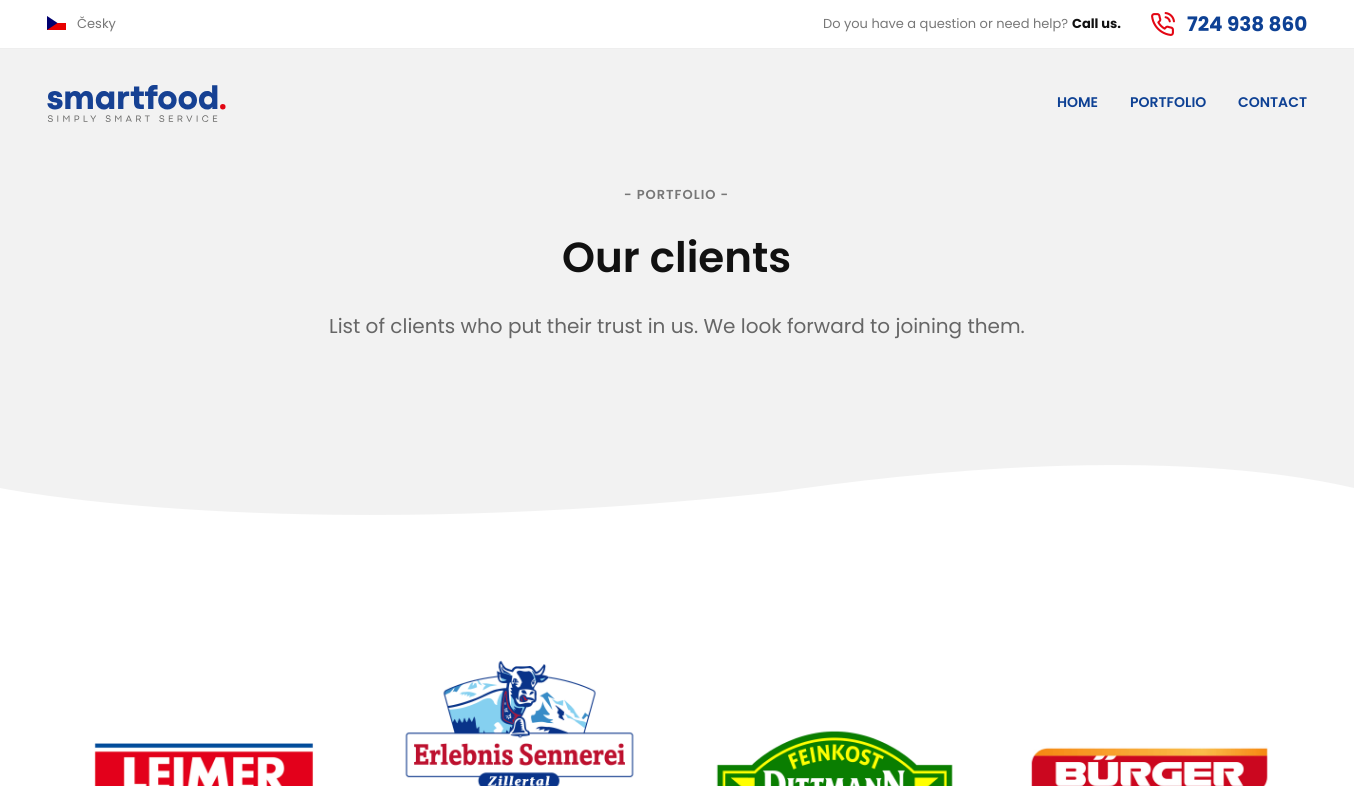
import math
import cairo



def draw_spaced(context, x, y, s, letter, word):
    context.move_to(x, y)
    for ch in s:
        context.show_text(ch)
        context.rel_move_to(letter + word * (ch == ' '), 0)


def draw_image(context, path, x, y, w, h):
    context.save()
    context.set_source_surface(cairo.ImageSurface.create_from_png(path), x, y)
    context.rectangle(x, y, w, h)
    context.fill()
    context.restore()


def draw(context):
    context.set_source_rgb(1, 1, 1)
    context.paint()
    context.set_source_rgb(238 / 255, 238 / 255, 238 / 255)
    context.rectangle(0, 48, 1354, 1)
    context.fill()
    context.set_source_rgb(232 / 255, 0, 0)
    context.rectangle(47, 23, 19, 7)
    context.fill()
    context.set_source_rgb(0, 0, 111 / 255)
    context.new_path()
    context.move_to(47, 16)
    context.line_to(57.5, 23)
    context.line_to(47, 30)
    context.close_path()
    context.fill()
    draw_image(context, "images/1.png", 1151, 12, 24, 24)
    context.set_source_rgb(242 / 255, 242 / 255, 242 / 255)
    context.rectangle(0, 49, 1354, 466)
    context.fill()
    draw_image(context, "images/2.png", 47, 85, 179, 37)
    context.set_source_rgb(1, 1, 1)
    context.new_path()
    context.move_to(777, 492)
    context.curve_to(316, 542, 40, 496, 0, 488)
    context.line_to(0, 528)
    context.line_to(1354, 528)
    context.line_to(1354, 488)
    context.curve_to(1167, 445, 912, 472, 777, 492)
    context.close_path()
    context.fill()
    draw_image(context, "images/3.png", 94, 743, 220, 43)
    draw_image(context, "images/4.png", 405, 660, 229, 126)
    draw_image(context, "images/5.png", 716, 730, 237, 56)
    draw_image(context, "images/6.png", 1030, 746, 239, 40)
    context.select_font_face("Poppins")
    context.set_font_size(13)
    context.set_source_rgb(119 / 255, 119 / 255, 119 / 255)
    context.move_to(77, 28)
    context.show_text("Česky")
    context.move_to(823, 28)
    context.show_text("Do you have a question or need help?")
    context.select_font_face("Poppins", cairo.FontSlant.NORMAL, cairo.FontWeight.BOLD)
    context.set_source_rgb(17 / 255, 17 / 255, 17 / 255)
    context.move_to(1072, 28)
    context.show_text("Call us.")
    context.set_font_size(20)
    context.set_source_rgb(14 / 255, 65 / 255, 148 / 255)
    context.move_to(1187, 31)
    context.show_text("724 938 860")
    context.select_font_face("Poppins SemiBold")
    context.set_font_size(14)
    context.move_to(1057, 107)
    context.show_text("HOME")
    context.move_to(1130, 107)
    context.show_text("PORTFOLIO")
    context.move_to(1238, 107)
    context.show_text("CONTACT")
    context.set_font_size(13)
    context.set_source_rgb(119 / 255, 119 / 255, 119 / 255)
    draw_spaced(context, 624, 199, "- PORTFOLIO -", 1, 0)
    context.set_font_size(42)
    context.set_source_rgb(17 / 255, 17 / 255, 17 / 255)
    context.move_to(562, 272)
    context.show_text("Our clients")
    context.select_font_face("Poppins")
    context.set_font_size(20)
    context.set_source_rgb(102 / 255, 102 / 255, 102 / 255)
    context.move_to(329, 333)
    context.show_text("List of clients who put their trust in us. We look forward to joining them.")


surface = cairo.ImageSurface(cairo.Format.RGB24, 1354, 786)
context = cairo.Context(surface)
options = cairo.FontOptions()
options.set_hint_metrics(cairo.HintMetrics.OFF)
options.set_hint_style(cairo.HintStyle.NONE)
context.set_font_options(options)
context.set_miter_limit(4)
draw(context)
surface.write_to_png("out.png")
